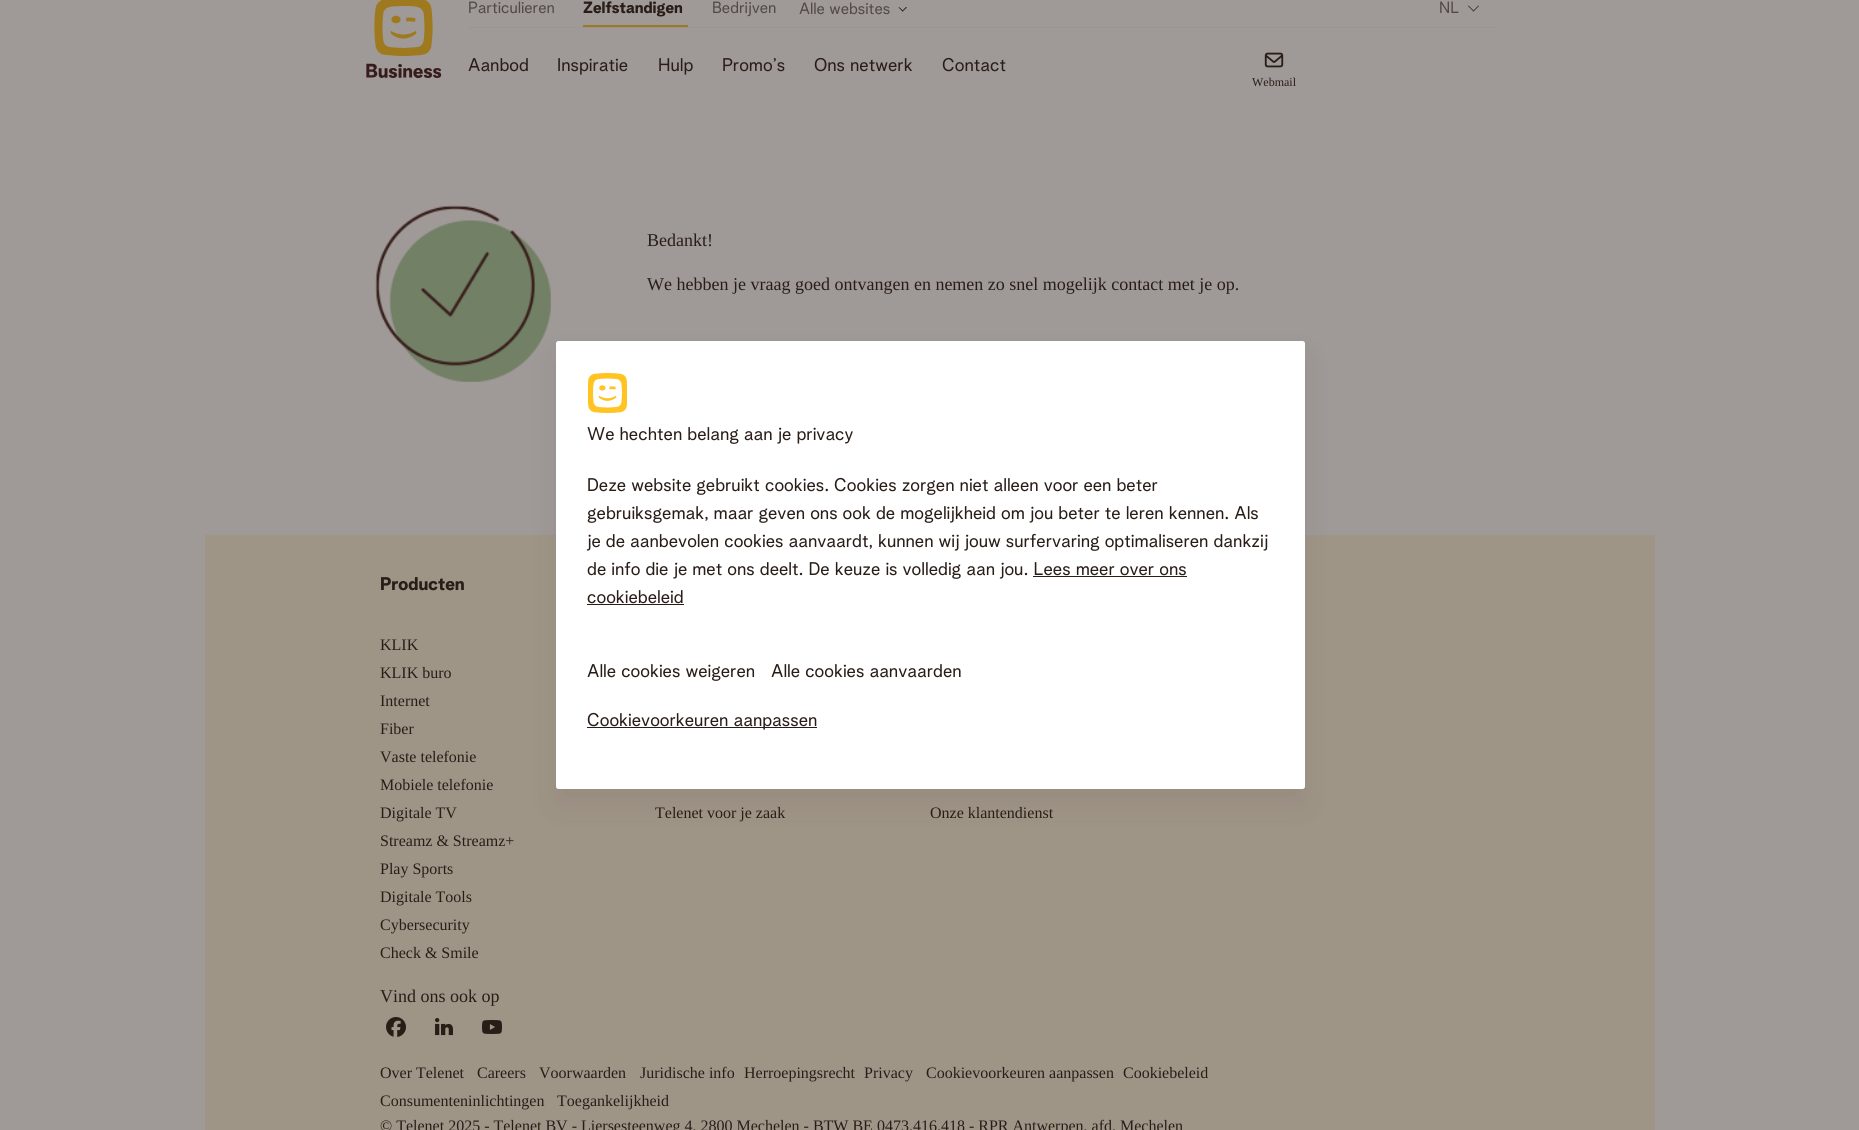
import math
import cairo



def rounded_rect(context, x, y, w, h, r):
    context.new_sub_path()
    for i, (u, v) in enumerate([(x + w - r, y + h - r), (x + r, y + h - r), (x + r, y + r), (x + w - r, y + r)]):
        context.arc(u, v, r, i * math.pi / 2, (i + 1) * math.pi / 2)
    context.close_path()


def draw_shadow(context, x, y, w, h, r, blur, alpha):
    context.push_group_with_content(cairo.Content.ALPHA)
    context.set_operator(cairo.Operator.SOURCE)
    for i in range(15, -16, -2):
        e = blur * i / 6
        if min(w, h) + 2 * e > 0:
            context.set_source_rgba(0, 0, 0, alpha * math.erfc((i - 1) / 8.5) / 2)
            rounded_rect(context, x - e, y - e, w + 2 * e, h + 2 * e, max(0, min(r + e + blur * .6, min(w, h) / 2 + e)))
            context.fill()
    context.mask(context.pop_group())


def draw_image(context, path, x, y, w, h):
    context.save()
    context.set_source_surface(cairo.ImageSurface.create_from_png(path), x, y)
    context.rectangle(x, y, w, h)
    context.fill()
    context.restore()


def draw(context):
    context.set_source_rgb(159 / 255, 153 / 255, 151 / 255)
    context.paint()
    draw_image(context, "images/1.png", 366, 0, 76, 78)
    context.set_source_rgb(154 / 255, 148 / 255, 146 / 255)
    context.rectangle(468, 27, 1028, 1)
    context.fill()
    context.set_source_rgb(159 / 255, 121 / 255, 29 / 255)
    context.rectangle(583, 25, 105, 2)
    context.fill()
    context.set_source_rgb(41 / 255, 29 / 255, 24 / 255)
    context.new_path()
    context.move_to(906, 7)
    context.line_to(907, 7.5)
    context.line_to(902.5, 11.5)
    context.line_to(902, 11)
    context.close_path()
    context.fill()
    context.new_path()
    context.move_to(899, 7)
    context.line_to(903.5, 11)
    context.line_to(902.5, 11.5)
    context.line_to(898.5, 7.5)
    context.close_path()
    context.fill()
    context.new_path()
    context.move_to(1478.5, 5.5)
    context.line_to(1479, 6)
    context.line_to(1473.5, 11.5)
    context.line_to(1473, 11)
    context.close_path()
    context.fill()
    context.new_path()
    context.move_to(1468.5, 5.5)
    context.line_to(1474, 11)
    context.line_to(1473.5, 11.5)
    context.line_to(1468, 6)
    context.close_path()
    context.fill()
    draw_image(context, "images/2.png", 1264, 52, 20, 16)
    draw_image(context, "images/3.png", 375, 205, 176, 177)
    gradient = cairo.LinearGradient(1859, 861, 0, 861)
    gradient.add_color_stop_rgba(0, 159 / 255, 153 / 255, 151 / 255, 1)
    gradient.add_color_stop_rgba(0.11, 159 / 255, 153 / 255, 151 / 255, 1)
    gradient.add_color_stop_rgba(0.11, 159 / 255, 149 / 255, 135 / 255, 1)
    gradient.add_color_stop_rgba(0.89, 159 / 255, 149 / 255, 135 / 255, 1)
    gradient.add_color_stop_rgba(0.89, 159 / 255, 153 / 255, 151 / 255, 1)
    context.set_source(gradient)
    context.rectangle(205, 535, 1450, 595)
    context.fill()
    context.set_source_rgb(41 / 255, 29 / 255, 24 / 255)
    draw_shadow(context, 556, 357, 749, 448, 2.5, 16, 0.08)
    context.set_source_rgb(1, 1, 1)
    rounded_rect(context, 556, 341, 749, 448, 2.5)
    context.fill()
    draw_image(context, "images/4.png", 588, 373, 39, 40)
    context.set_source_rgb(41 / 255, 29 / 255, 24 / 255)
    context.rectangle(1033, 576, 154, 1)
    context.fill()
    context.rectangle(587, 604, 97, 1)
    context.fill()
    context.rectangle(587, 727, 230, 1)
    context.fill()
    draw_image(context, "images/5.png", 386, 1017, 20, 20)
    draw_image(context, "images/6.png", 435, 1018, 18, 18)
    draw_image(context, "images/7.png", 482, 1020, 20, 14)
    context.select_font_face("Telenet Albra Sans")
    context.set_font_size(16)
    context.set_source_rgb(83 / 255, 74 / 255, 70 / 255)
    context.move_to(468, 13)
    context.show_text("Particulieren")
    context.select_font_face("Telenet Albra Sans", cairo.FontSlant.NORMAL, cairo.FontWeight.BOLD)
    context.set_source_rgb(41 / 255, 29 / 255, 24 / 255)
    context.move_to(583, 13)
    context.show_text("Zelfstandigen")
    context.select_font_face("Telenet Albra Sans")
    context.set_source_rgb(83 / 255, 74 / 255, 70 / 255)
    context.move_to(712, 13)
    context.show_text("Bedrijven")
    context.move_to(799, 14)
    context.show_text("Alle websites")
    context.move_to(1439, 13)
    context.show_text("NL")
    context.set_font_size(18)
    context.set_source_rgb(41 / 255, 29 / 255, 24 / 255)
    context.move_to(468, 71)
    context.show_text("Aanbod")
    context.move_to(557, 71)
    context.show_text("Inspiratie")
    context.move_to(658, 71)
    context.show_text("Hulp")
    context.move_to(722, 71)
    context.show_text("Promo’s")
    context.move_to(814, 71)
    context.show_text("Ons netwerk")
    context.move_to(942, 71)
    context.show_text("Contact")
    context.select_font_face("Liberation Serif")
    context.set_font_size(12)
    context.move_to(1252, 86)
    context.show_text("Webmail")
    context.set_font_size(18)
    context.move_to(647, 246)
    context.show_text("Bedankt!")
    context.move_to(647, 290)
    context.show_text("We hebben je vraag goed ontvangen en nemen zo snel mogelijk contact met je op.")
    context.select_font_face("Telenet Albra Sans")
    context.move_to(587, 440)
    context.show_text("We hechten belang aan je privacy")
    context.move_to(587, 491)
    context.show_text("Deze website gebruikt cookies. Cookies zorgen niet alleen voor een beter")
    context.move_to(587, 519)
    context.show_text("gebruiksgemak, maar geven ons ook de mogelijkheid om jou beter te leren kennen. Als")
    context.move_to(587, 547)
    context.show_text("je de aanbevolen cookies aanvaardt, kunnen wij jouw surfervaring optimaliseren dankzij")
    context.move_to(587, 575)
    context.show_text("de info die je met ons deelt. De keuze is volledig aan jou. Lees meer over ons")
    context.move_to(587, 603)
    context.show_text("cookiebeleid")
    context.move_to(587, 677)
    context.show_text("Alle cookies weigeren")
    context.move_to(771, 677)
    context.show_text("Alle cookies aanvaarden")
    context.move_to(587, 726)
    context.show_text("Cookievoorkeuren aanpassen")
    context.select_font_face("Telenet Albra Sans", cairo.FontSlant.NORMAL, cairo.FontWeight.BOLD)
    context.move_to(380, 590)
    context.show_text("Producten")
    context.select_font_face("Liberation Serif")
    context.set_font_size(16)
    context.move_to(380, 650)
    context.show_text("KLIK")
    context.move_to(380, 678)
    context.show_text("KLIK buro")
    context.move_to(380, 706)
    context.show_text("Internet")
    context.move_to(380, 734)
    context.show_text("Fiber")
    context.move_to(380, 762)
    context.show_text("Vaste telefonie")
    context.move_to(380, 790)
    context.show_text("Mobiele telefonie")
    context.move_to(380, 818)
    context.show_text("Digitale TV")
    context.move_to(380, 846)
    context.show_text("Streamz & Streamz+")
    context.move_to(380, 874)
    context.show_text("Play Sports")
    context.move_to(380, 902)
    context.show_text("Digitale Tools")
    context.move_to(380, 930)
    context.show_text("Cybersecurity")
    context.move_to(380, 958)
    context.show_text("Check & Smile")
    context.save()
    context.rectangle(655, 625, 275, 201)
    context.clip()
    context.move_to(655, 818)
    context.show_text("Telenet voor je zaak")
    context.restore()
    context.move_to(930, 818)
    context.show_text("Onze klantendienst")
    context.set_font_size(18)
    context.move_to(380, 1002)
    context.show_text("Vind ons ook op")
    context.set_font_size(16)
    context.move_to(380, 1078)
    context.show_text("Over Telenet")
    context.move_to(477, 1078)
    context.show_text("Careers")
    context.move_to(539, 1078)
    context.show_text("Voorwaarden")
    context.move_to(640, 1078)
    context.show_text("Juridische info")
    context.move_to(744, 1078)
    context.show_text("Herroepingsrecht")
    context.move_to(864, 1078)
    context.show_text("Privacy")
    context.move_to(926, 1078)
    context.show_text("Cookievoorkeuren aanpassen")
    context.move_to(1123, 1078)
    context.show_text("Cookiebeleid")
    context.move_to(380, 1106)
    context.show_text("Consumenteninlichtingen")
    context.move_to(557, 1106)
    context.show_text("Toegankelijkheid")
    context.move_to(380, 1131)
    context.show_text("© Telenet 2025 - Telenet BV - Liersesteenweg 4, 2800 Mechelen - BTW BE 0473.416.418 - RPR Antwerpen, afd. Mechelen")


surface = cairo.ImageSurface(cairo.Format.RGB24, 1859, 1130)
context = cairo.Context(surface)
options = cairo.FontOptions()
options.set_hint_metrics(cairo.HintMetrics.OFF)
options.set_hint_style(cairo.HintStyle.NONE)
context.set_font_options(options)
context.set_miter_limit(4)
draw(context)
surface.write_to_png("out.png")
